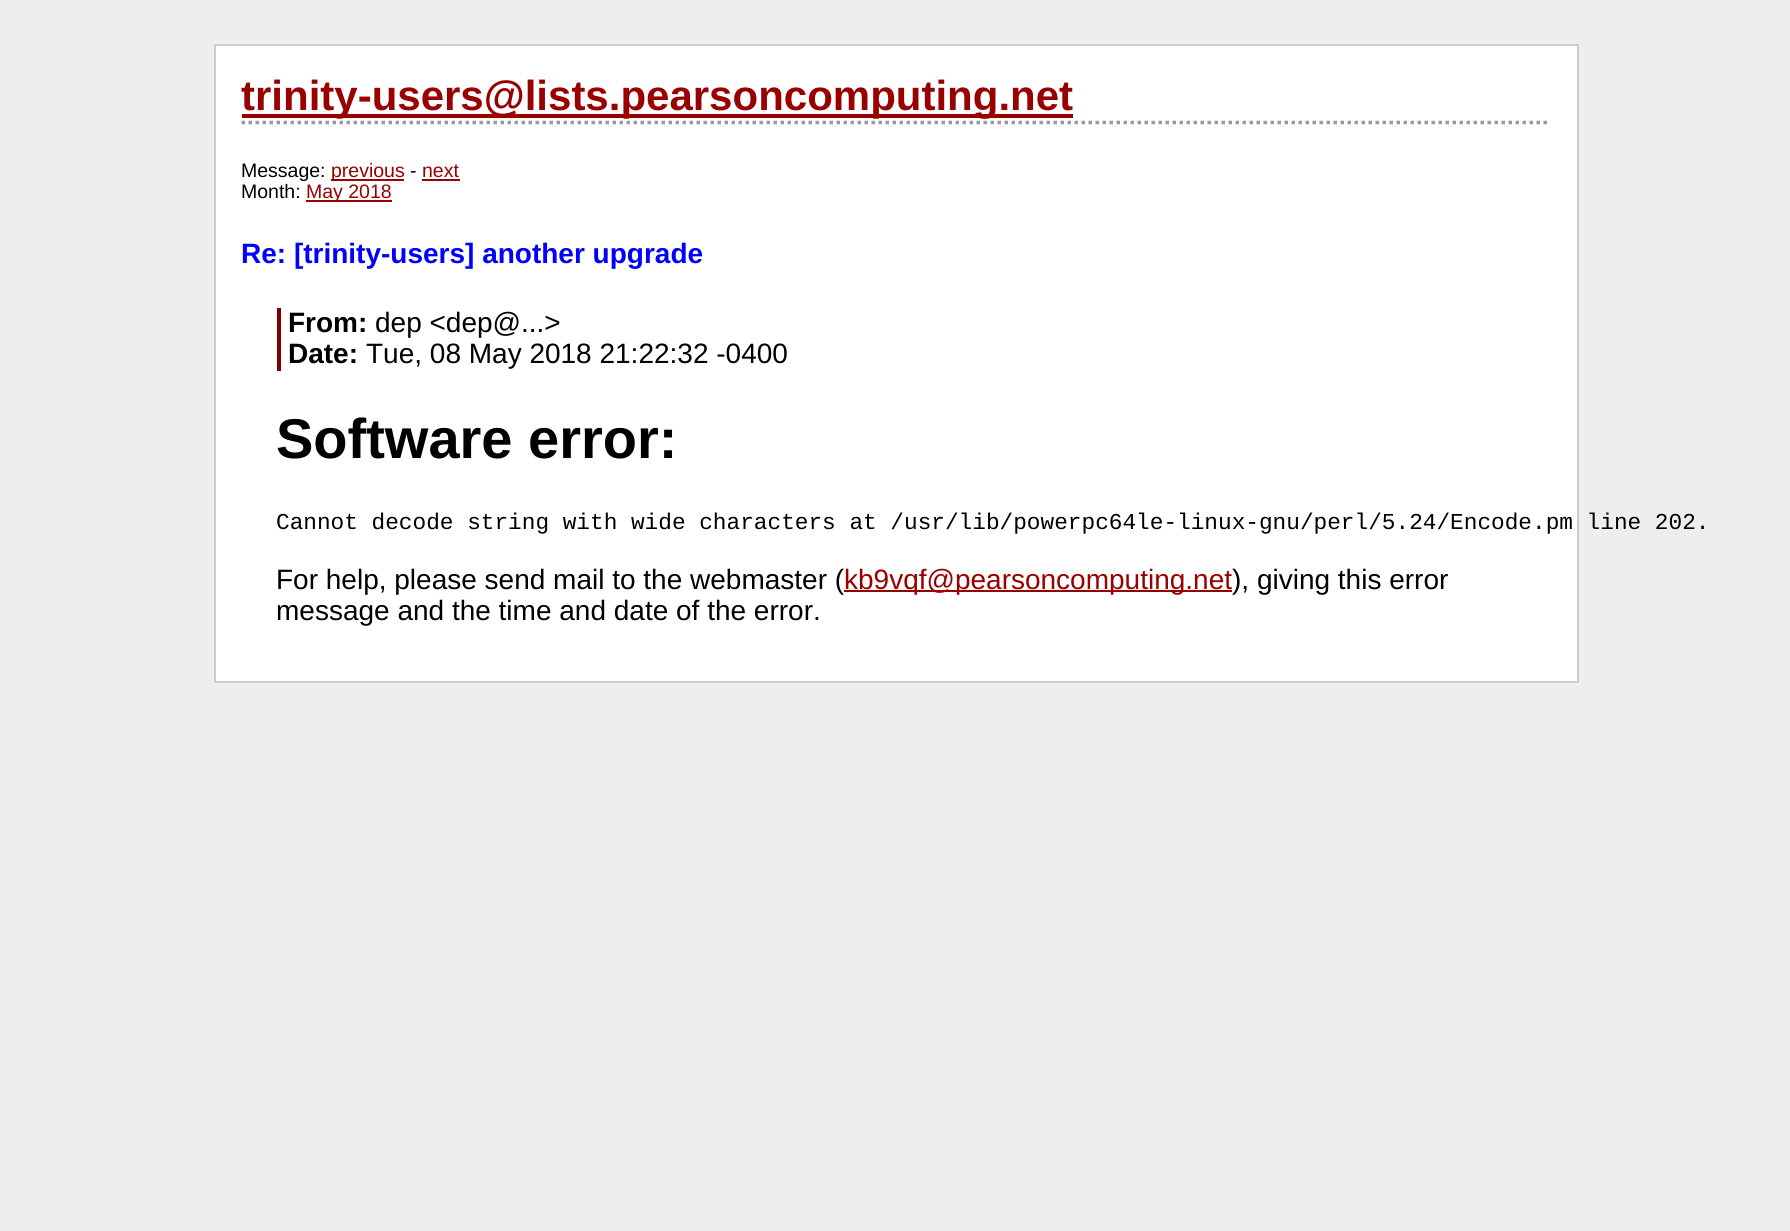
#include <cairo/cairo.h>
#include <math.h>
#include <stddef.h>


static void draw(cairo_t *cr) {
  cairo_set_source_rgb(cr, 238 / 255.0, 238 / 255.0, 238 / 255.0);
  cairo_paint(cr);
  cairo_set_source_rgb(cr, 1, 1, 1);
  cairo_rectangle(cr, 215, 45, 1363, 637);
  cairo_fill_preserve(cr);
  cairo_set_source_rgb(cr, 204 / 255.0, 204 / 255.0, 204 / 255.0);
  cairo_stroke(cr);
  cairo_new_path(cr);
  cairo_move_to(cr, 241.5, 122.5);
  cairo_line_to(cr, 1550.5, 122.5);
  cairo_set_source_rgb(cr, 153 / 255.0, 153 / 255.0, 153 / 255.0);
  cairo_set_line_width(cr, 3.5);
  cairo_set_dash(cr, (double[]){3.5, 3.5}, 2, 0);
  cairo_stroke(cr);
  cairo_set_source_rgb(cr, 153 / 255.0, 0, 0);
  cairo_rectangle(cr, 242, 114, 831, 4);
  cairo_fill(cr);
  cairo_rectangle(cr, 331, 179, 73, 2);
  cairo_fill(cr);
  cairo_rectangle(cr, 422, 179, 38, 2);
  cairo_fill(cr);
  cairo_rectangle(cr, 306, 200, 86, 2);
  cairo_fill(cr);
  cairo_set_source_rgb(cr, 128 / 255.0, 0, 0);
  cairo_rectangle(cr, 277, 308, 4, 63);
  cairo_fill(cr);
  cairo_set_source_rgb(cr, 153 / 255.0, 0, 0);
  cairo_rectangle(cr, 844, 590, 388, 2);
  cairo_fill(cr);
  cairo_select_font_face(cr, "Liberation Sans", CAIRO_FONT_SLANT_NORMAL, CAIRO_FONT_WEIGHT_BOLD);
  cairo_set_font_size(cr, 42);
  cairo_move_to(cr, 241, 110);
  cairo_show_text(cr, "trinity-users@lists.pearsoncomputing.net");
  cairo_select_font_face(cr, "Liberation Sans", CAIRO_FONT_SLANT_NORMAL, CAIRO_FONT_WEIGHT_NORMAL);
  cairo_set_font_size(cr, 19.5);
  cairo_set_source_rgb(cr, 0, 0, 0);
  cairo_move_to(cr, 241, 177);
  cairo_show_text(cr, "Message:");
  cairo_set_source_rgb(cr, 153 / 255.0, 0, 0);
  cairo_move_to(cr, 331, 177);
  cairo_show_text(cr, "previous");
  cairo_set_source_rgb(cr, 0, 0, 0);
  cairo_move_to(cr, 410, 177);
  cairo_show_text(cr, "-");
  cairo_set_source_rgb(cr, 153 / 255.0, 0, 0);
  cairo_move_to(cr, 422, 177);
  cairo_show_text(cr, "next");
  cairo_set_source_rgb(cr, 0, 0, 0);
  cairo_move_to(cr, 241, 198);
  cairo_show_text(cr, "Month:");
  cairo_set_source_rgb(cr, 153 / 255.0, 0, 0);
  cairo_move_to(cr, 306, 198);
  cairo_show_text(cr, "May 2018");
  cairo_select_font_face(cr, "Liberation Sans", CAIRO_FONT_SLANT_NORMAL, CAIRO_FONT_WEIGHT_BOLD);
  cairo_set_font_size(cr, 28);
  cairo_set_source_rgb(cr, 0, 0, 1);
  cairo_move_to(cr, 241, 263);
  cairo_show_text(cr, "Re: [trinity-users] another upgrade");
  cairo_set_source_rgb(cr, 0, 0, 0);
  cairo_move_to(cr, 288, 332);
  cairo_show_text(cr, "From:");
  cairo_select_font_face(cr, "Liberation Sans", CAIRO_FONT_SLANT_NORMAL, CAIRO_FONT_WEIGHT_NORMAL);
  cairo_move_to(cr, 375, 332);
  cairo_show_text(cr, "dep <dep@...>");
  cairo_select_font_face(cr, "Liberation Sans", CAIRO_FONT_SLANT_NORMAL, CAIRO_FONT_WEIGHT_BOLD);
  cairo_move_to(cr, 288, 363);
  cairo_show_text(cr, "Date:");
  cairo_select_font_face(cr, "Liberation Sans", CAIRO_FONT_SLANT_NORMAL, CAIRO_FONT_WEIGHT_NORMAL);
  cairo_move_to(cr, 366, 363);
  cairo_show_text(cr, "Tue, 08 May 2018 21:22:32 -0400");
  cairo_select_font_face(cr, "Liberation Sans", CAIRO_FONT_SLANT_NORMAL, CAIRO_FONT_WEIGHT_BOLD);
  cairo_set_font_size(cr, 56);
  cairo_move_to(cr, 276, 458);
  cairo_show_text(cr, "Software error:");
  cairo_select_font_face(cr, "Liberation Mono", CAIRO_FONT_SLANT_NORMAL, CAIRO_FONT_WEIGHT_NORMAL);
  cairo_set_font_size(cr, 22.75);
  cairo_move_to(cr, 276, 529);
  cairo_show_text(cr, "Cannot decode string with wide characters at /usr/lib/powerpc64le-linux-gnu/perl/5.24/Encode.pm line 202.");
  cairo_select_font_face(cr, "Liberation Sans", CAIRO_FONT_SLANT_NORMAL, CAIRO_FONT_WEIGHT_NORMAL);
  cairo_set_font_size(cr, 28);
  cairo_move_to(cr, 276, 589);
  cairo_show_text(cr, "For help, please send mail to the webmaster (");
  cairo_set_source_rgb(cr, 153 / 255.0, 0, 0);
  cairo_move_to(cr, 844, 589);
  cairo_show_text(cr, "kb9vqf@pearsoncomputing.net");
  cairo_set_source_rgb(cr, 0, 0, 0);
  cairo_move_to(cr, 1232, 589);
  cairo_show_text(cr, "), giving this error");
  cairo_move_to(cr, 276, 620);
  cairo_show_text(cr, "message and the time and date of the error.");
}

int main(void) {
  cairo_surface_t *surface = cairo_image_surface_create(CAIRO_FORMAT_RGB24, 1790, 1231);
  cairo_t *cr = cairo_create(surface);
  cairo_font_options_t *options = cairo_font_options_create();
  cairo_font_options_set_hint_metrics(options, CAIRO_HINT_METRICS_OFF);
  cairo_font_options_set_hint_style(options, CAIRO_HINT_STYLE_NONE);
  cairo_set_font_options(cr, options);
  cairo_set_miter_limit(cr, 4);
  draw(cr);
  cairo_surface_write_to_png(surface, "out.png");
  cairo_font_options_destroy(options);
  cairo_destroy(cr);
  cairo_surface_destroy(surface);
  return 0;
}
